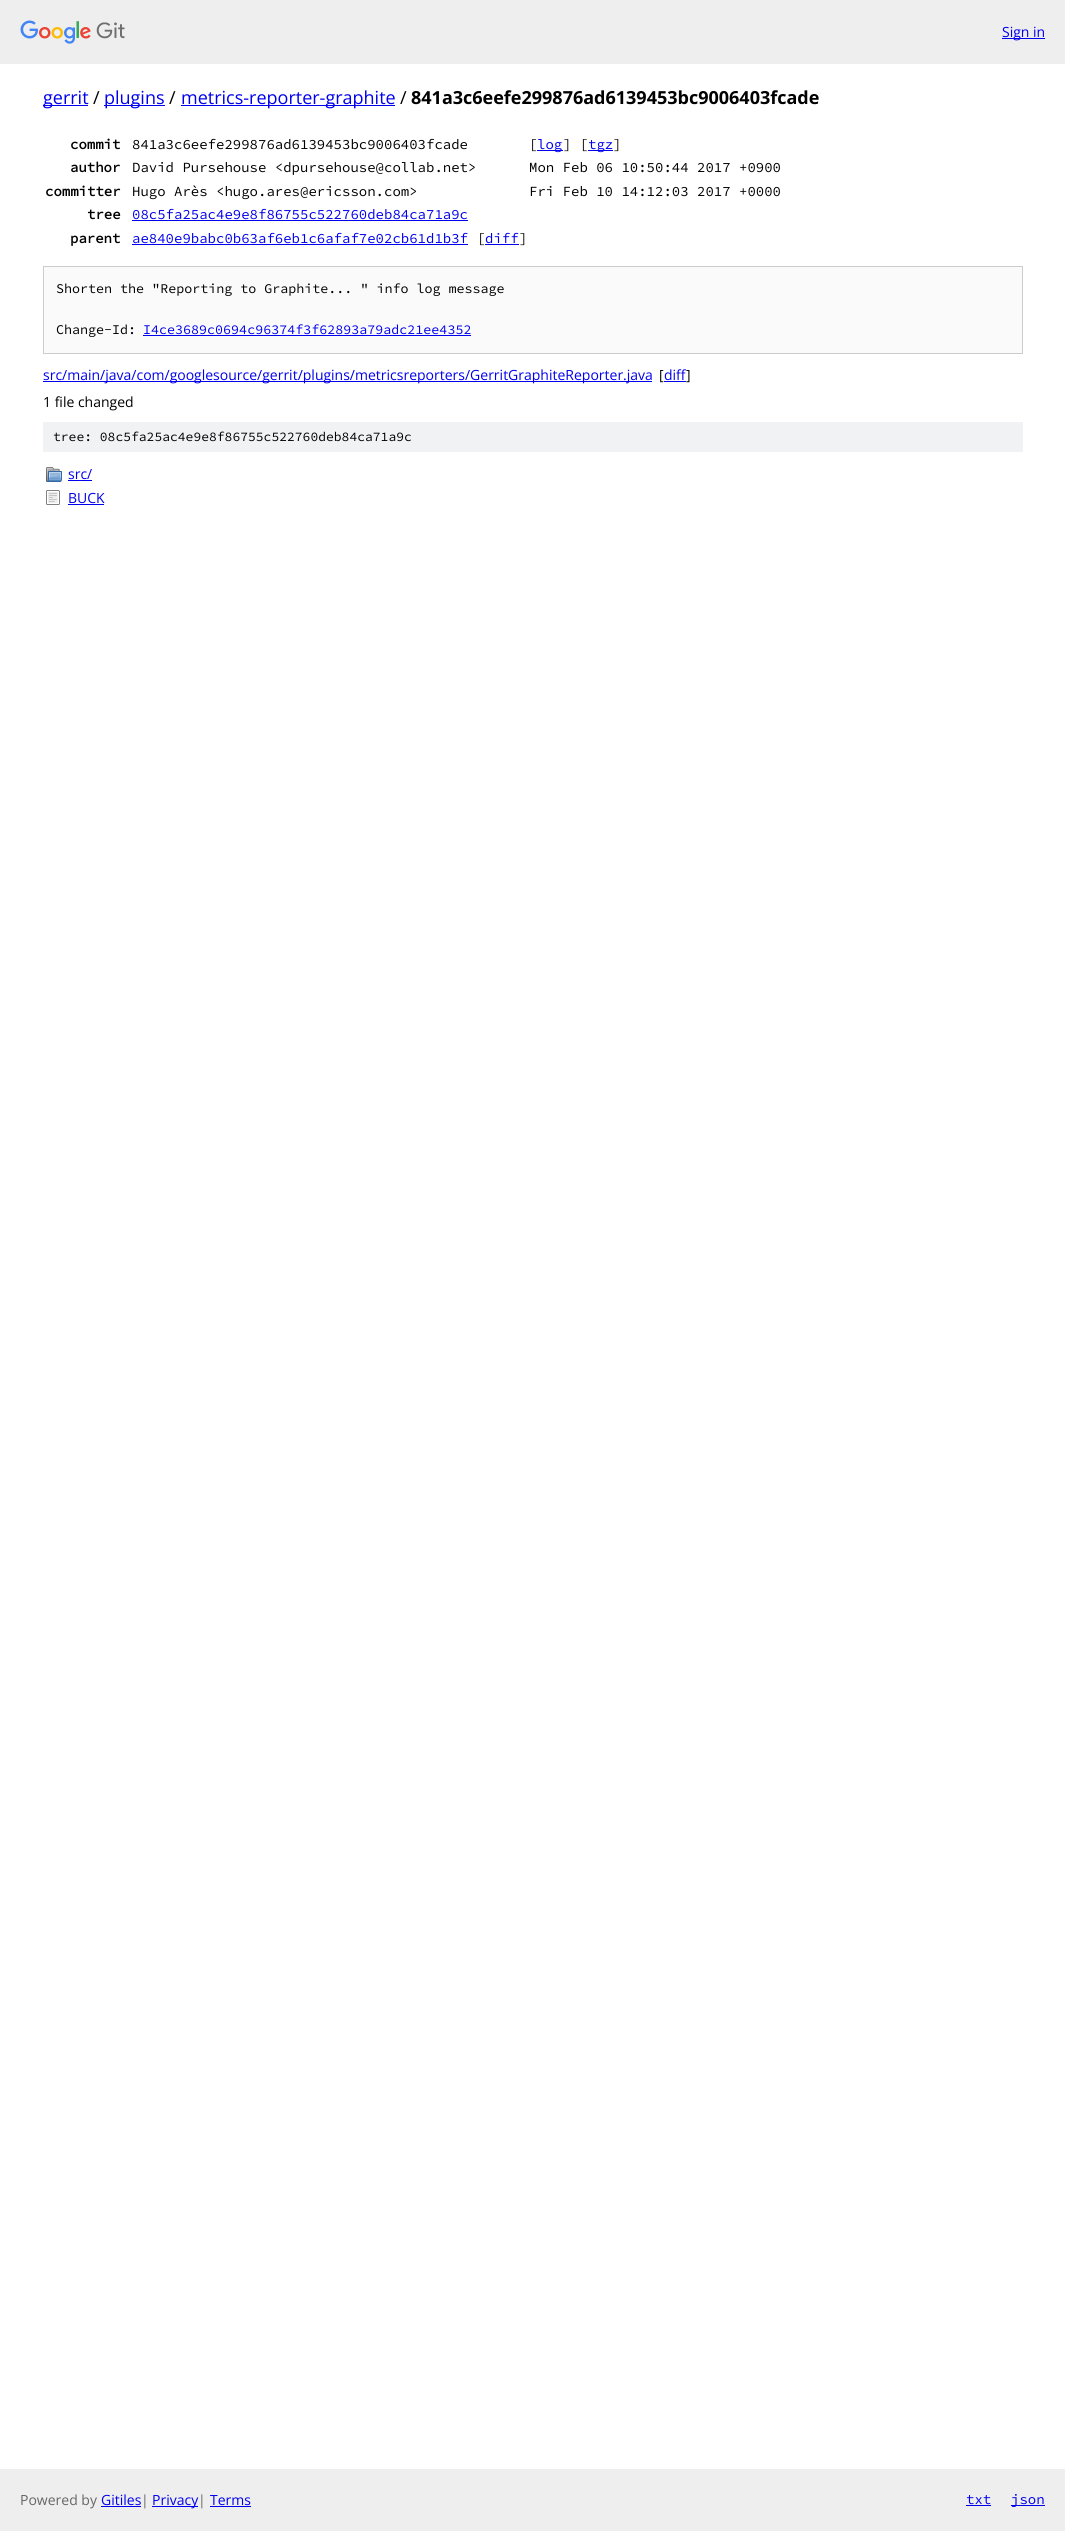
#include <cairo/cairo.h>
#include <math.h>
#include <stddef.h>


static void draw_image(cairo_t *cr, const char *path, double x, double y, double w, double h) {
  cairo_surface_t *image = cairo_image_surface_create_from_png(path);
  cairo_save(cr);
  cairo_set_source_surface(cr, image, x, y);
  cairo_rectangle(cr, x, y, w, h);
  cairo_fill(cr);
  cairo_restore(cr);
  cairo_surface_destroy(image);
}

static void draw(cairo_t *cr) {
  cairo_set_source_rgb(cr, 1, 1, 1);
  cairo_paint(cr);
  cairo_set_source_rgb(cr, 238 / 255.0, 238 / 255.0, 238 / 255.0);
  cairo_rectangle(cr, 0, 0, 1065, 64);
  cairo_fill(cr);
  draw_image(cr, "images/1.png", 20, 20, 105, 24);
  cairo_set_source_rgb(cr, 0, 0, 238 / 255.0);
  cairo_rectangle(cr, 1002, 38, 43, 1);
  cairo_fill(cr);
  cairo_rectangle(cr, 43, 105, 45, 1);
  cairo_fill(cr);
  cairo_rectangle(cr, 104, 105, 61, 1);
  cairo_fill(cr);
  cairo_rectangle(cr, 181, 105, 214, 1);
  cairo_fill(cr);
  cairo_rectangle(cr, 537, 150, 26, 1);
  cairo_fill(cr);
  cairo_rectangle(cr, 588, 150, 25, 1);
  cairo_fill(cr);
  cairo_rectangle(cr, 132, 220, 336, 1);
  cairo_fill(cr);
  cairo_rectangle(cr, 132, 244, 336, 1);
  cairo_fill(cr);
  cairo_rectangle(cr, 485, 244, 34, 1);
  cairo_fill(cr);
  cairo_set_source_rgb(cr, 250 / 255.0, 250 / 255.0, 250 / 255.0);
  cairo_rectangle(cr, 43.5, 266.5, 979, 87);
  cairo_fill_preserve(cr);
  cairo_set_source_rgb(cr, 204 / 255.0, 204 / 255.0, 204 / 255.0);
  cairo_set_line_width(cr, 1);
  cairo_stroke(cr);
  cairo_set_source_rgb(cr, 0, 0, 238 / 255.0);
  cairo_rectangle(cr, 143, 335, 328, 1);
  cairo_fill(cr);
  cairo_rectangle(cr, 43, 381, 609, 1);
  cairo_fill(cr);
  cairo_rectangle(cr, 664, 381, 22, 1);
  cairo_fill(cr);
  cairo_set_source_rgb(cr, 241 / 255.0, 242 / 255.0, 243 / 255.0);
  cairo_rectangle(cr, 43, 422, 980, 30);
  cairo_fill(cr);
  draw_image(cr, "images/2.png", 46, 467, 16, 15);
  cairo_set_source_rgb(cr, 0, 0, 238 / 255.0);
  cairo_rectangle(cr, 68, 480, 24, 1);
  cairo_fill(cr);
  draw_image(cr, "images/3.png", 46, 490, 14, 15);
  cairo_rectangle(cr, 68, 504, 36, 1);
  cairo_fill(cr);
  cairo_set_source_rgb(cr, 238 / 255.0, 238 / 255.0, 238 / 255.0);
  cairo_rectangle(cr, 0, 2469, 1065, 62);
  cairo_fill(cr);
  cairo_set_source_rgb(cr, 0, 0, 238 / 255.0);
  cairo_rectangle(cr, 101, 2506, 40, 1);
  cairo_fill(cr);
  cairo_rectangle(cr, 152, 2506, 46, 1);
  cairo_fill(cr);
  cairo_rectangle(cr, 210, 2506, 41, 1);
  cairo_fill(cr);
  cairo_rectangle(cr, 966, 2505, 25, 1);
  cairo_fill(cr);
  cairo_rectangle(cr, 1011, 2505, 34, 1);
  cairo_fill(cr);
  cairo_select_font_face(cr, "Open Sans", CAIRO_FONT_SLANT_NORMAL, CAIRO_FONT_WEIGHT_NORMAL);
  cairo_set_font_size(cr, 14);
  cairo_move_to(cr, 1002, 37);
  cairo_show_text(cr, "Sign in");
  cairo_set_font_size(cr, 18);
  cairo_move_to(cr, 43, 104);
  cairo_show_text(cr, "gerrit");
  cairo_set_source_rgb(cr, 0, 0, 0);
  cairo_move_to(cr, 93, 104);
  cairo_show_text(cr, "/");
  cairo_set_source_rgb(cr, 0, 0, 238 / 255.0);
  cairo_move_to(cr, 104, 104);
  cairo_show_text(cr, "plugins");
  cairo_set_source_rgb(cr, 0, 0, 0);
  cairo_move_to(cr, 169, 104);
  cairo_show_text(cr, "/");
  cairo_set_source_rgb(cr, 0, 0, 238 / 255.0);
  cairo_move_to(cr, 181, 104);
  cairo_show_text(cr, "metrics-reporter-graphite");
  cairo_set_source_rgb(cr, 0, 0, 0);
  cairo_move_to(cr, 400, 104);
  cairo_show_text(cr, "/");
  cairo_select_font_face(cr, "Open Sans", CAIRO_FONT_SLANT_NORMAL, CAIRO_FONT_WEIGHT_BOLD);
  cairo_move_to(cr, 411, 104);
  cairo_show_text(cr, "841a3c6eefe299876ad6139453bc9006403fcade");
  cairo_select_font_face(cr, "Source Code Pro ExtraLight", CAIRO_FONT_SLANT_NORMAL, CAIRO_FONT_WEIGHT_BOLD);
  cairo_set_font_size(cr, 14);
  cairo_move_to(cr, 70, 149);
  cairo_show_text(cr, "commit");
  cairo_select_font_face(cr, "Source Code Pro ExtraLight ExtraLight", CAIRO_FONT_SLANT_NORMAL, CAIRO_FONT_WEIGHT_NORMAL);
  cairo_move_to(cr, 132, 149);
  cairo_show_text(cr, "841a3c6eefe299876ad6139453bc9006403fcade");
  cairo_move_to(cr, 529, 149);
  cairo_show_text(cr, "[");
  cairo_set_source_rgb(cr, 0, 0, 238 / 255.0);
  cairo_move_to(cr, 537, 149);
  cairo_show_text(cr, "log");
  cairo_set_source_rgb(cr, 0, 0, 0);
  cairo_move_to(cr, 563, 149);
  cairo_show_text(cr, "] [");
  cairo_set_source_rgb(cr, 0, 0, 238 / 255.0);
  cairo_move_to(cr, 588, 149);
  cairo_show_text(cr, "tgz");
  cairo_set_source_rgb(cr, 0, 0, 0);
  cairo_move_to(cr, 613, 149);
  cairo_show_text(cr, "]");
  cairo_select_font_face(cr, "Source Code Pro ExtraLight", CAIRO_FONT_SLANT_NORMAL, CAIRO_FONT_WEIGHT_BOLD);
  cairo_move_to(cr, 70, 172);
  cairo_show_text(cr, "author");
  cairo_select_font_face(cr, "Source Code Pro ExtraLight ExtraLight", CAIRO_FONT_SLANT_NORMAL, CAIRO_FONT_WEIGHT_NORMAL);
  cairo_move_to(cr, 132, 172);
  cairo_show_text(cr, "David Pursehouse <dpursehouse@collab.net>");
  cairo_move_to(cr, 529, 172);
  cairo_show_text(cr, "Mon Feb 06 10:50:44 2017 +0900");
  cairo_select_font_face(cr, "Source Code Pro ExtraLight", CAIRO_FONT_SLANT_NORMAL, CAIRO_FONT_WEIGHT_BOLD);
  cairo_move_to(cr, 45, 196);
  cairo_show_text(cr, "committer");
  cairo_select_font_face(cr, "Source Code Pro ExtraLight ExtraLight", CAIRO_FONT_SLANT_NORMAL, CAIRO_FONT_WEIGHT_NORMAL);
  cairo_move_to(cr, 132, 196);
  cairo_show_text(cr, "Hugo Arès <hugo.ares@ericsson.com>");
  cairo_move_to(cr, 529, 196);
  cairo_show_text(cr, "Fri Feb 10 14:12:03 2017 +0000");
  cairo_select_font_face(cr, "Source Code Pro ExtraLight", CAIRO_FONT_SLANT_NORMAL, CAIRO_FONT_WEIGHT_BOLD);
  cairo_move_to(cr, 87, 219);
  cairo_show_text(cr, "tree");
  cairo_select_font_face(cr, "Source Code Pro ExtraLight ExtraLight", CAIRO_FONT_SLANT_NORMAL, CAIRO_FONT_WEIGHT_NORMAL);
  cairo_set_source_rgb(cr, 0, 0, 238 / 255.0);
  cairo_move_to(cr, 132, 219);
  cairo_show_text(cr, "08c5fa25ac4e9e8f86755c522760deb84ca71a9c");
  cairo_select_font_face(cr, "Source Code Pro ExtraLight", CAIRO_FONT_SLANT_NORMAL, CAIRO_FONT_WEIGHT_BOLD);
  cairo_set_source_rgb(cr, 0, 0, 0);
  cairo_move_to(cr, 70, 243);
  cairo_show_text(cr, "parent");
  cairo_select_font_face(cr, "Source Code Pro ExtraLight ExtraLight", CAIRO_FONT_SLANT_NORMAL, CAIRO_FONT_WEIGHT_NORMAL);
  cairo_set_source_rgb(cr, 0, 0, 238 / 255.0);
  cairo_move_to(cr, 132, 243);
  cairo_show_text(cr, "ae840e9babc0b63af6eb1c6afaf7e02cb61d1b3f");
  cairo_set_source_rgb(cr, 0, 0, 0);
  cairo_move_to(cr, 477, 243);
  cairo_show_text(cr, "[");
  cairo_set_source_rgb(cr, 0, 0, 238 / 255.0);
  cairo_move_to(cr, 485, 243);
  cairo_show_text(cr, "diff");
  cairo_set_source_rgb(cr, 0, 0, 0);
  cairo_move_to(cr, 519, 243);
  cairo_show_text(cr, "]");
  cairo_set_font_size(cr, 13.35);
  cairo_move_to(cr, 56, 293);
  cairo_show_text(cr, "Shorten the \"Reporting to Graphite... \" info log message");
  cairo_move_to(cr, 56, 334);
  cairo_show_text(cr, "Change-Id:");
  cairo_set_source_rgb(cr, 0, 0, 238 / 255.0);
  cairo_move_to(cr, 143, 334);
  cairo_show_text(cr, "I4ce3689c0694c96374f3f62893a79adc21ee4352");
  cairo_select_font_face(cr, "Open Sans", CAIRO_FONT_SLANT_NORMAL, CAIRO_FONT_WEIGHT_NORMAL);
  cairo_set_font_size(cr, 14);
  cairo_move_to(cr, 43, 380);
  cairo_show_text(cr, "src/main/java/com/googlesource/gerrit/plugins/metricsreporters/GerritGraphiteReporter.java");
  cairo_set_source_rgb(cr, 0, 0, 0);
  cairo_move_to(cr, 659, 380);
  cairo_show_text(cr, "[");
  cairo_set_source_rgb(cr, 0, 0, 238 / 255.0);
  cairo_move_to(cr, 664, 380);
  cairo_show_text(cr, "diff");
  cairo_set_source_rgb(cr, 0, 0, 0);
  cairo_move_to(cr, 686, 380);
  cairo_show_text(cr, "]");
  cairo_move_to(cr, 43, 407);
  cairo_show_text(cr, "1 file changed");
  cairo_select_font_face(cr, "Source Code Pro ExtraLight ExtraLight", CAIRO_FONT_SLANT_NORMAL, CAIRO_FONT_WEIGHT_NORMAL);
  cairo_set_font_size(cr, 13);
  cairo_move_to(cr, 53, 441);
  cairo_show_text(cr, "tree: 08c5fa25ac4e9e8f86755c522760deb84ca71a9c");
  cairo_select_font_face(cr, "Open Sans", CAIRO_FONT_SLANT_NORMAL, CAIRO_FONT_WEIGHT_NORMAL);
  cairo_set_font_size(cr, 14);
  cairo_set_source_rgb(cr, 0, 0, 238 / 255.0);
  cairo_move_to(cr, 68, 479);
  cairo_show_text(cr, "src/");
  cairo_move_to(cr, 68, 503);
  cairo_show_text(cr, "BUCK");
  cairo_set_source_rgb(cr, 102 / 255.0, 102 / 255.0, 102 / 255.0);
  cairo_move_to(cr, 20, 2505);
  cairo_show_text(cr, "Powered by");
  cairo_set_source_rgb(cr, 0, 0, 238 / 255.0);
  cairo_move_to(cr, 101, 2505);
  cairo_show_text(cr, "Gitiles");
  cairo_set_source_rgb(cr, 102 / 255.0, 102 / 255.0, 102 / 255.0);
  cairo_move_to(cr, 141, 2505);
  cairo_show_text(cr, "|");
  cairo_set_source_rgb(cr, 0, 0, 238 / 255.0);
  cairo_move_to(cr, 152, 2505);
  cairo_show_text(cr, "Privacy");
  cairo_set_source_rgb(cr, 102 / 255.0, 102 / 255.0, 102 / 255.0);
  cairo_move_to(cr, 198, 2505);
  cairo_show_text(cr, "|");
  cairo_set_source_rgb(cr, 0, 0, 238 / 255.0);
  cairo_move_to(cr, 210, 2505);
  cairo_show_text(cr, "Terms");
  cairo_select_font_face(cr, "Source Code Pro ExtraLight ExtraLight", CAIRO_FONT_SLANT_NORMAL, CAIRO_FONT_WEIGHT_NORMAL);
  cairo_move_to(cr, 966, 2504);
  cairo_show_text(cr, "txt");
  cairo_move_to(cr, 1011, 2504);
  cairo_show_text(cr, "json");
}

int main(void) {
  cairo_surface_t *surface = cairo_image_surface_create(CAIRO_FORMAT_RGB24, 1065, 2531);
  cairo_t *cr = cairo_create(surface);
  cairo_font_options_t *options = cairo_font_options_create();
  cairo_font_options_set_hint_metrics(options, CAIRO_HINT_METRICS_OFF);
  cairo_font_options_set_hint_style(options, CAIRO_HINT_STYLE_NONE);
  cairo_set_font_options(cr, options);
  cairo_set_miter_limit(cr, 4);
  draw(cr);
  cairo_surface_write_to_png(surface, "out.png");
  cairo_font_options_destroy(options);
  cairo_destroy(cr);
  cairo_surface_destroy(surface);
  return 0;
}
